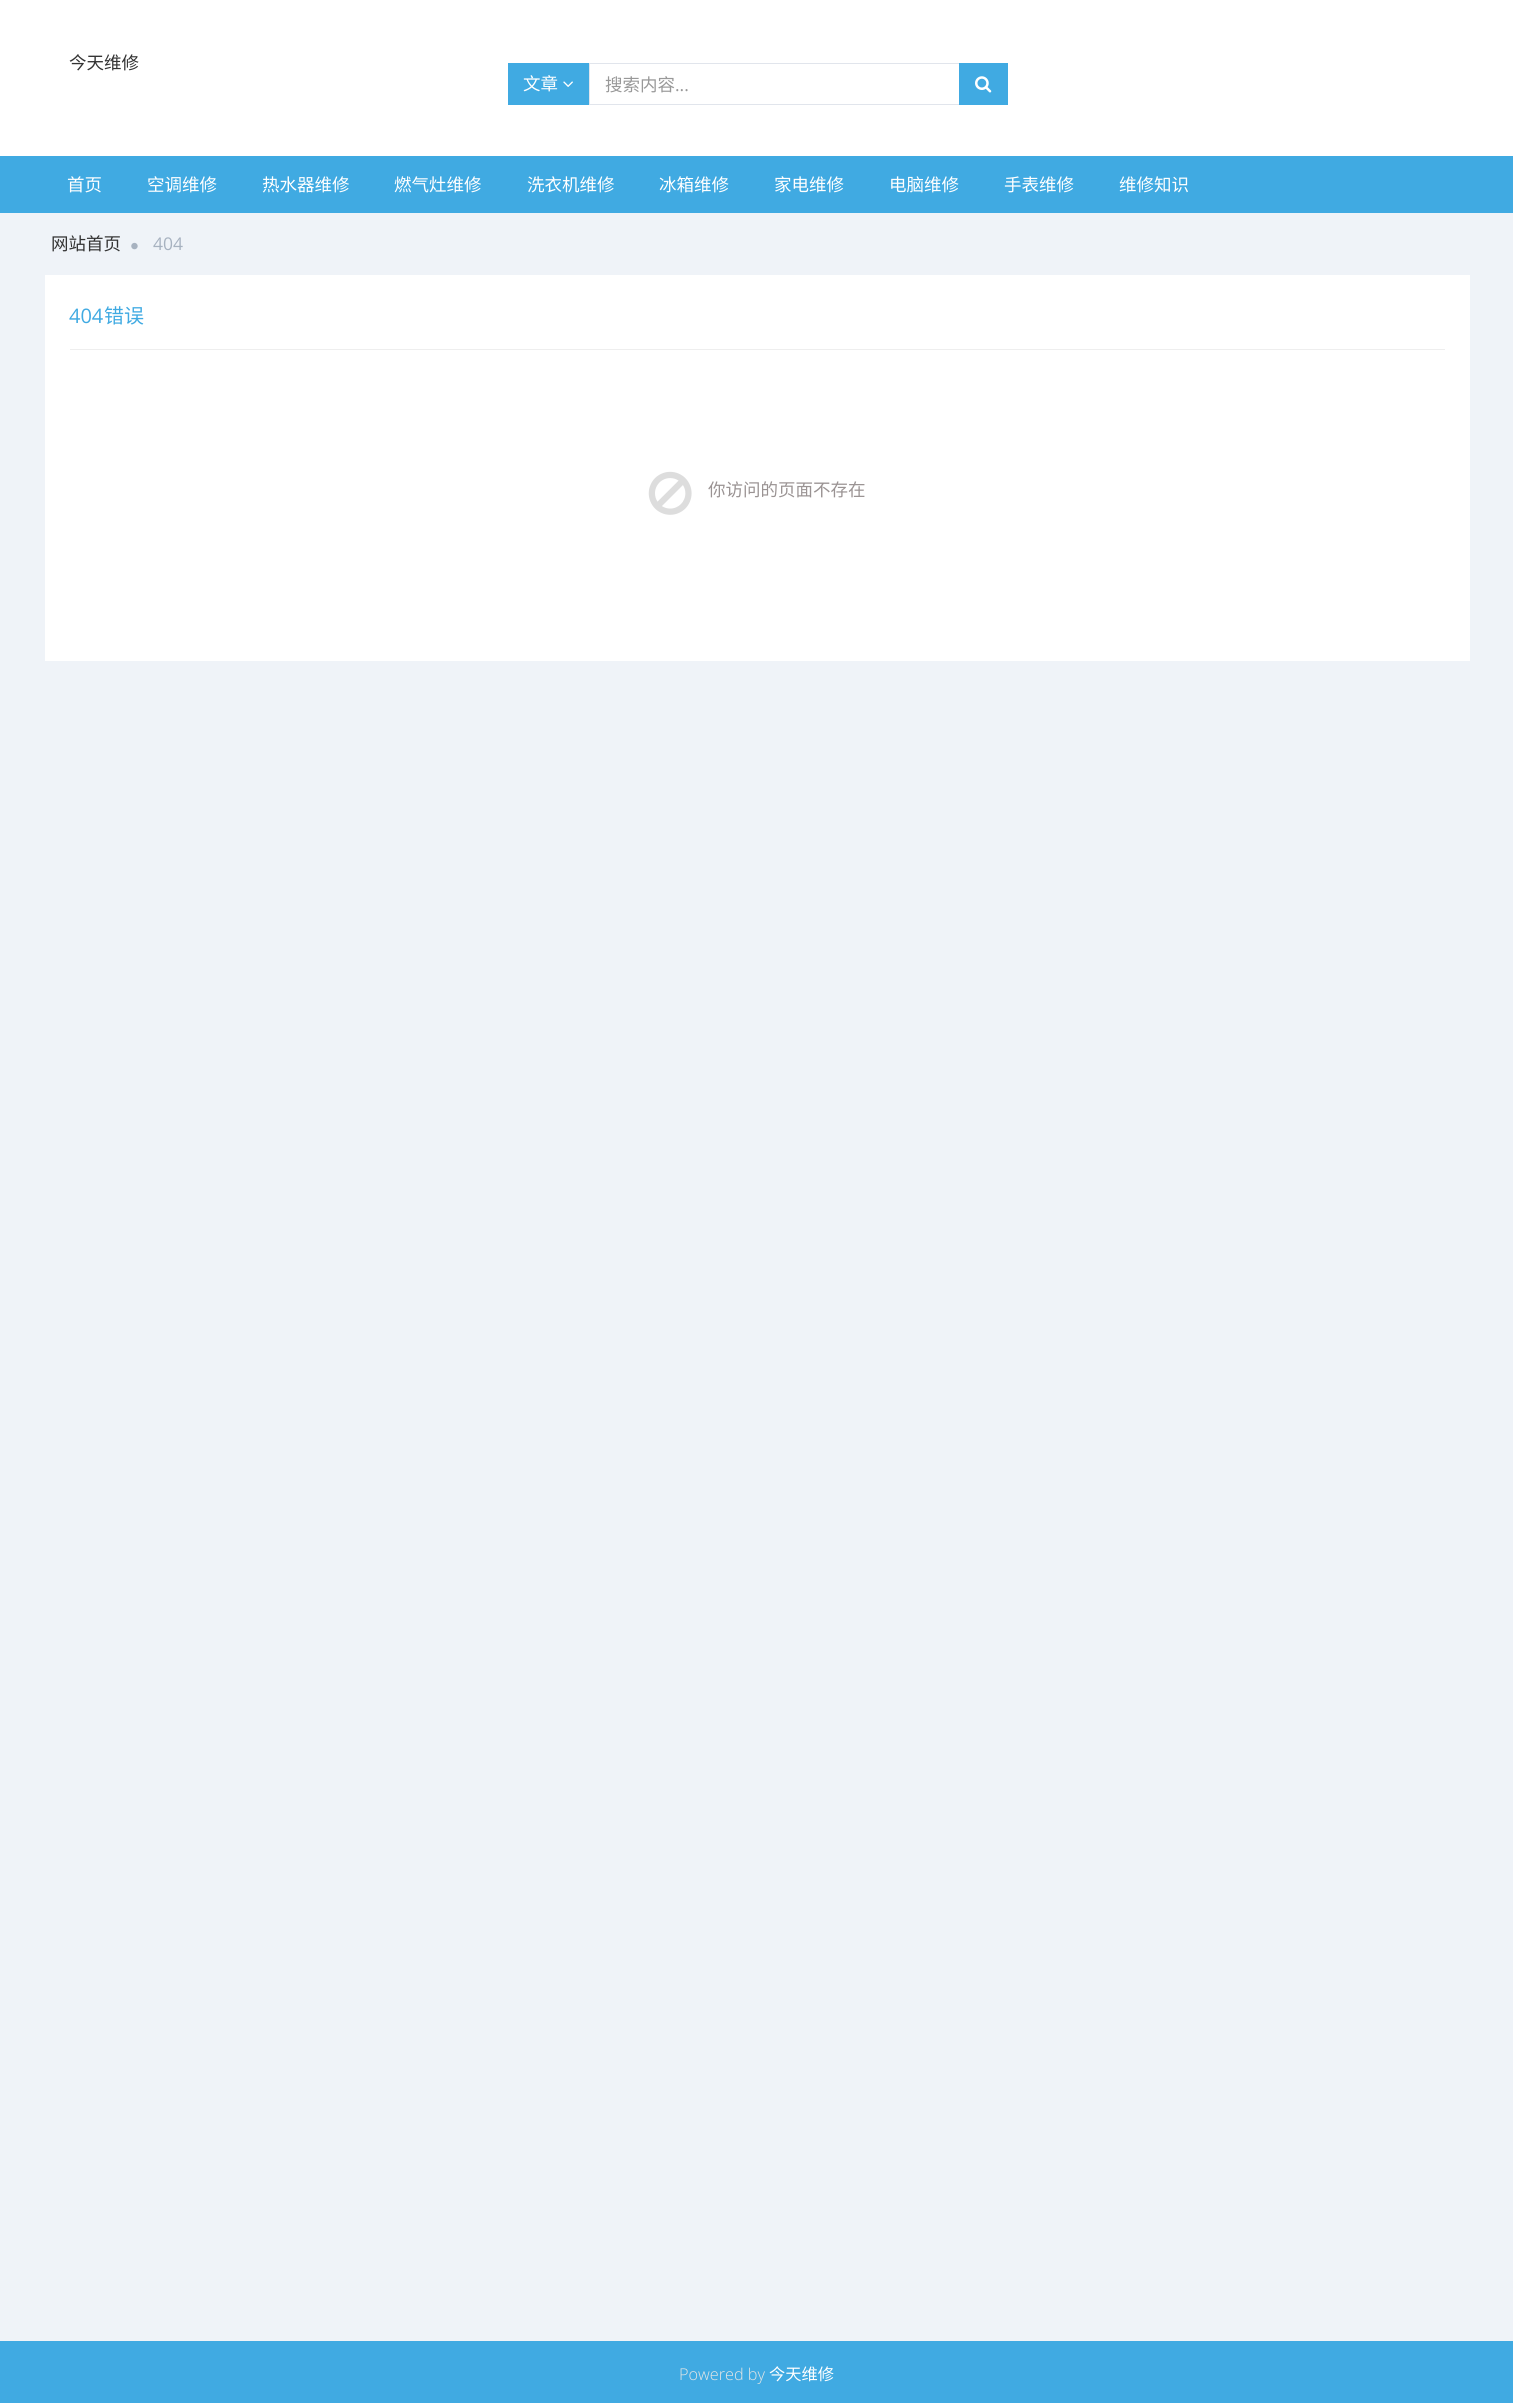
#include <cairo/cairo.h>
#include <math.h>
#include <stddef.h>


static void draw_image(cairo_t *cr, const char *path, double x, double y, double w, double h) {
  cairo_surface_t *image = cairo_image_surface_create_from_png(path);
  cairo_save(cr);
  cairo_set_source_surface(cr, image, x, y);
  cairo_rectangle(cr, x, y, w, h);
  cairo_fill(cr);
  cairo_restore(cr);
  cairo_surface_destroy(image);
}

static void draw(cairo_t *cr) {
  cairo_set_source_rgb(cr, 1, 1, 1);
  cairo_paint(cr);
  cairo_set_source_rgb(cr, 64 / 255.0, 170 / 255.0, 226 / 255.0);
  cairo_rectangle(cr, 508, 63, 81, 42);
  cairo_fill(cr);
  draw_image(cr, "images/1.png", 563, 81, 10, 6);
  cairo_rectangle(cr, 589.5, 63.5, 370, 41);
  cairo_set_source_rgb(cr, 225 / 255.0, 229 / 255.0, 236 / 255.0);
  cairo_set_line_width(cr, 1);
  cairo_stroke(cr);
  cairo_set_source_rgb(cr, 64 / 255.0, 170 / 255.0, 226 / 255.0);
  cairo_rectangle(cr, 959, 63, 49, 42);
  cairo_fill(cr);
  draw_image(cr, "images/2.png", 975, 76, 17, 17);
  cairo_rectangle(cr, 0, 156, 1513, 57);
  cairo_fill(cr);
  cairo_set_source_rgb(cr, 239 / 255.0, 243 / 255.0, 248 / 255.0);
  cairo_rectangle(cr, 0, 213, 1513, 2128);
  cairo_fill(cr);
  draw_image(cr, "images/3.png", 131, 242, 7, 8);
  cairo_set_source_rgb(cr, 1, 1, 1);
  cairo_rectangle(cr, 45, 275, 1425, 386);
  cairo_fill(cr);
  cairo_set_source_rgb(cr, 238 / 255.0, 238 / 255.0, 238 / 255.0);
  cairo_rectangle(cr, 70, 349, 1375, 1);
  cairo_fill(cr);
  draw_image(cr, "images/4.png", 648, 471, 44, 44);
  cairo_set_source_rgb(cr, 64 / 255.0, 170 / 255.0, 226 / 255.0);
  cairo_rectangle(cr, 0, 2341, 1513, 62);
  cairo_fill(cr);
  cairo_select_font_face(cr, "Noto Sans CJK SC", CAIRO_FONT_SLANT_NORMAL, CAIRO_FONT_WEIGHT_NORMAL);
  cairo_set_font_size(cr, 17.5);
  cairo_set_source_rgb(cr, 51 / 255.0, 51 / 255.0, 51 / 255.0);
  cairo_move_to(cr, 69, 69);
  cairo_show_text(cr, "今天维修");
  cairo_set_source_rgb(cr, 1, 1, 1);
  cairo_move_to(cr, 523, 90);
  cairo_show_text(cr, "文章");
  cairo_set_source_rgb(cr, 153 / 255.0, 153 / 255.0, 153 / 255.0);
  cairo_move_to(cr, 605, 91);
  cairo_show_text(cr, "搜索内容");
  cairo_select_font_face(cr, "Open Sans", CAIRO_FONT_SLANT_NORMAL, CAIRO_FONT_WEIGHT_NORMAL);
  cairo_move_to(cr, 675, 91);
  cairo_show_text(cr, "...");
  cairo_select_font_face(cr, "Noto Sans CJK SC", CAIRO_FONT_SLANT_NORMAL, CAIRO_FONT_WEIGHT_NORMAL);
  cairo_set_source_rgb(cr, 1, 1, 1);
  cairo_move_to(cr, 67, 191);
  cairo_show_text(cr, "首页");
  cairo_move_to(cr, 147, 191);
  cairo_show_text(cr, "空调维修");
  cairo_move_to(cr, 262, 191);
  cairo_show_text(cr, "热水器维修");
  cairo_move_to(cr, 394, 191);
  cairo_show_text(cr, "燃气灶维修");
  cairo_move_to(cr, 527, 191);
  cairo_show_text(cr, "洗衣机维修");
  cairo_move_to(cr, 659, 191);
  cairo_show_text(cr, "冰箱维修");
  cairo_move_to(cr, 774, 191);
  cairo_show_text(cr, "家电维修");
  cairo_move_to(cr, 889, 191);
  cairo_show_text(cr, "电脑维修");
  cairo_move_to(cr, 1004, 191);
  cairo_show_text(cr, "手表维修");
  cairo_move_to(cr, 1119, 191);
  cairo_show_text(cr, "维修知识");
  cairo_set_source_rgb(cr, 51 / 255.0, 51 / 255.0, 51 / 255.0);
  cairo_move_to(cr, 51, 250);
  cairo_show_text(cr, "网站首页");
  cairo_select_font_face(cr, "Open Sans", CAIRO_FONT_SLANT_NORMAL, CAIRO_FONT_WEIGHT_NORMAL);
  cairo_set_source_rgb(cr, 167 / 255.0, 178 / 255.0, 192 / 255.0);
  cairo_move_to(cr, 153, 250);
  cairo_show_text(cr, "404");
  cairo_set_font_size(cr, 20);
  cairo_set_source_rgb(cr, 64 / 255.0, 170 / 255.0, 226 / 255.0);
  cairo_move_to(cr, 69, 323);
  cairo_show_text(cr, "404");
  cairo_select_font_face(cr, "Noto Sans CJK SC", CAIRO_FONT_SLANT_NORMAL, CAIRO_FONT_WEIGHT_NORMAL);
  cairo_move_to(cr, 104, 323);
  cairo_show_text(cr, "错误");
  cairo_set_font_size(cr, 17.5);
  cairo_set_source_rgb(cr, 154 / 255.0, 147 / 255.0, 147 / 255.0);
  cairo_move_to(cr, 708, 496);
  cairo_show_text(cr, "你访问的页面不存在");
  cairo_select_font_face(cr, "Open Sans Light", CAIRO_FONT_SLANT_NORMAL, CAIRO_FONT_WEIGHT_NORMAL);
  cairo_set_font_size(cr, 16.25);
  cairo_set_source_rgb(cr, 230 / 255.0, 230 / 255.0, 229 / 255.0);
  cairo_move_to(cr, 679, 2380);
  cairo_show_text(cr, "Powered by");
  cairo_select_font_face(cr, "Noto Sans CJK SC", CAIRO_FONT_SLANT_NORMAL, CAIRO_FONT_WEIGHT_NORMAL);
  cairo_set_source_rgb(cr, 1, 1, 1);
  cairo_move_to(cr, 769, 2380);
  cairo_show_text(cr, "今天维修");
}

int main(void) {
  cairo_surface_t *surface = cairo_image_surface_create(CAIRO_FORMAT_RGB24, 1513, 2403);
  cairo_t *cr = cairo_create(surface);
  cairo_font_options_t *options = cairo_font_options_create();
  cairo_font_options_set_hint_metrics(options, CAIRO_HINT_METRICS_OFF);
  cairo_font_options_set_hint_style(options, CAIRO_HINT_STYLE_NONE);
  cairo_set_font_options(cr, options);
  cairo_set_miter_limit(cr, 4);
  draw(cr);
  cairo_surface_write_to_png(surface, "out.png");
  cairo_font_options_destroy(options);
  cairo_destroy(cr);
  cairo_surface_destroy(surface);
  return 0;
}
